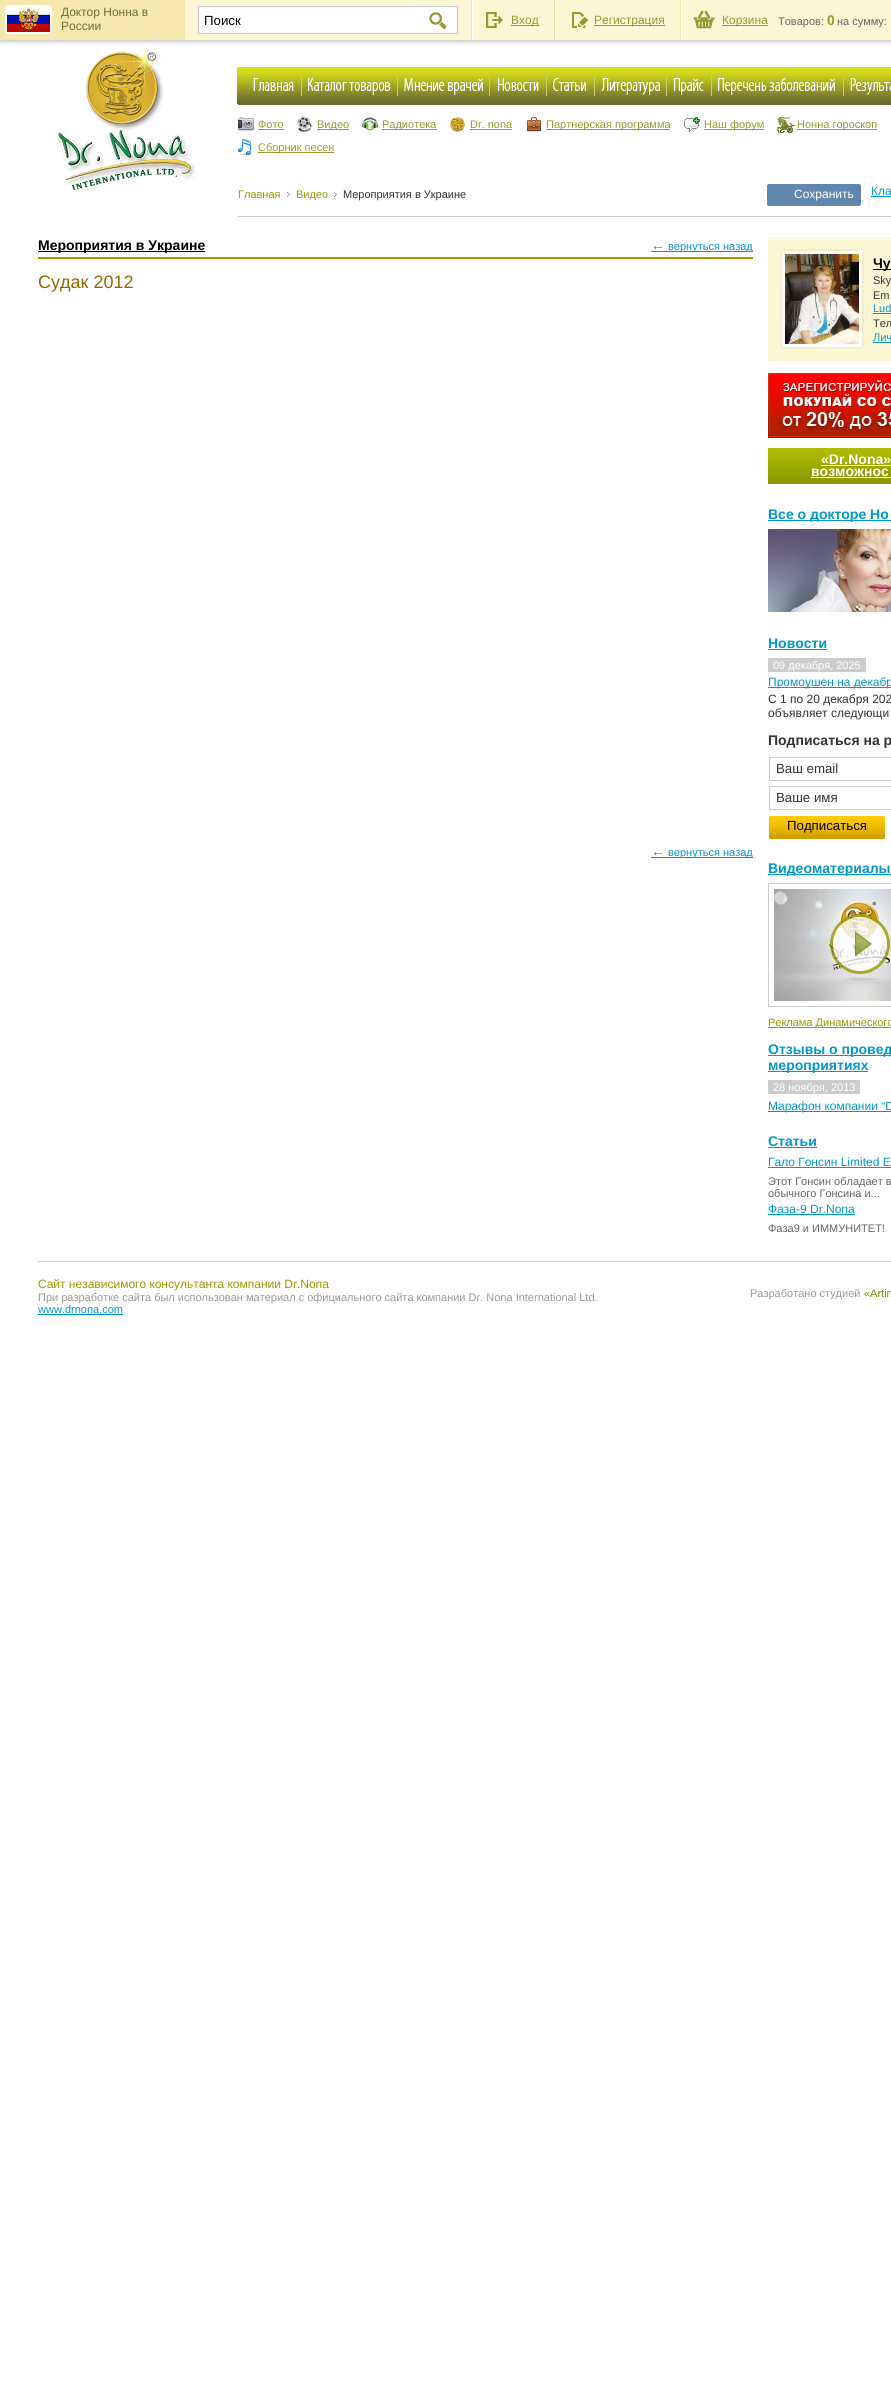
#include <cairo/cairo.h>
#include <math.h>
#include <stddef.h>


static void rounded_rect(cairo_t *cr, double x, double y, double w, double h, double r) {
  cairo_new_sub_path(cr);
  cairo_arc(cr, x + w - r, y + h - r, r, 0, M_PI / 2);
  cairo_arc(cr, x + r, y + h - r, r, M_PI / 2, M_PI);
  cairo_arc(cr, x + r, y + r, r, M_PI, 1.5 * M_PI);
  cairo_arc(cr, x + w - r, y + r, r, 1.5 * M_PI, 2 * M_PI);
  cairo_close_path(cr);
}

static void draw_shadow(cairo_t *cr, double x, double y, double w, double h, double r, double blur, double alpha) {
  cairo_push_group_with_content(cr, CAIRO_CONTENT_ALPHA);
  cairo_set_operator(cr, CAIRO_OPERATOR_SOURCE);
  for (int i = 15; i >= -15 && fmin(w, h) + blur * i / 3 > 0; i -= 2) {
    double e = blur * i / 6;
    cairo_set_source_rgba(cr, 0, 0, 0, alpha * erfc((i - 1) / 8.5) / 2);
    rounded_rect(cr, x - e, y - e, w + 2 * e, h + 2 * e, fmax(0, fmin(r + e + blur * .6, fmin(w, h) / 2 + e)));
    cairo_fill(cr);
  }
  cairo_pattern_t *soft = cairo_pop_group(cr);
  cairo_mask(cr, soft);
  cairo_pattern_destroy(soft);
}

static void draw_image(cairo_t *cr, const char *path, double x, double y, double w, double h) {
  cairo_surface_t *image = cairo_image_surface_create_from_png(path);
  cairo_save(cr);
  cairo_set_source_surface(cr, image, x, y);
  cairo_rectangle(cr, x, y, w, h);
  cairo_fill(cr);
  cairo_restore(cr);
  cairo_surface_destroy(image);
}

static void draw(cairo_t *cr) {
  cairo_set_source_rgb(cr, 1, 1, 1);
  cairo_paint(cr);
  draw_image(cr, "images/6.png", 57, 40, 140, 151);
  cairo_set_source_rgb(cr, 24 / 255.0, 24 / 255.0, 25 / 255.0);
  draw_shadow(cr, 0, 0, 891, 40, 0, 3, 0.47);
  cairo_set_source_rgb(cr, 253 / 255.0, 246 / 255.0, 212 / 255.0);
  cairo_rectangle(cr, 185, 0, 706, 40);
  cairo_fill(cr);
  cairo_set_source_rgb(cr, 245 / 255.0, 233 / 255.0, 176 / 255.0);
  cairo_rectangle(cr, 0, 0, 185, 40);
  cairo_fill(cr);
  rounded_rect(cr, 6, 6, 45, 27, 2);
  cairo_set_source_rgb(cr, 1, 1, 1);
  cairo_stroke(cr);
  draw_image(cr, "images/1.png", 7, 7, 43, 25);
  cairo_rectangle(cr, 198.5, 6.5, 259, 27);
  cairo_fill_preserve(cr);
  cairo_set_source_rgb(cr, 204 / 255.0, 204 / 255.0, 204 / 255.0);
  cairo_set_line_width(cr, 1);
  cairo_stroke(cr);
  draw_image(cr, "images/2.png", 429, 12, 18, 17);
  cairo_set_source_rgb(cr, 245 / 255.0, 233 / 255.0, 176 / 255.0);
  cairo_rectangle(cr, 471, 0, 1, 40);
  cairo_fill(cr);
  draw_image(cr, "images/3.png", 486, 12, 17, 16);
  cairo_set_source_rgb(cr, 1, 1, 1);
  cairo_rectangle(cr, 472, 0, 1, 40);
  cairo_fill(cr);
  cairo_set_source_rgb(cr, 153 / 255.0, 153 / 255.0, 51 / 255.0);
  cairo_rectangle(cr, 511, 25, 28, 1);
  cairo_fill(cr);
  cairo_set_source_rgb(cr, 245 / 255.0, 233 / 255.0, 176 / 255.0);
  cairo_rectangle(cr, 554, 0, 1, 40);
  cairo_fill(cr);
  draw_image(cr, "images/4.png", 572, 12, 16, 16);
  cairo_set_source_rgb(cr, 1, 1, 1);
  cairo_rectangle(cr, 555, 0, 1, 40);
  cairo_fill(cr);
  cairo_set_source_rgb(cr, 153 / 255.0, 153 / 255.0, 51 / 255.0);
  cairo_rectangle(cr, 594, 25, 71, 1);
  cairo_fill(cr);
  cairo_set_source_rgb(cr, 245 / 255.0, 233 / 255.0, 176 / 255.0);
  cairo_rectangle(cr, 680, 0, 1, 40);
  cairo_fill(cr);
  draw_image(cr, "images/5.png", 693, 10, 22, 19);
  cairo_set_source_rgb(cr, 1, 1, 1);
  cairo_rectangle(cr, 681, 0, 1, 40);
  cairo_fill(cr);
  cairo_set_source_rgb(cr, 153 / 255.0, 153 / 255.0, 51 / 255.0);
  cairo_rectangle(cr, 722, 25, 46, 1);
  cairo_fill(cr);
  draw_image(cr, "images/7.png", 238, 67, 653, 38);
  draw_image(cr, "images/8.png", 237, 68, 1, 36);
  draw_image(cr, "images/9.png", 253, 75, 49, 21);
  draw_image(cr, "images/10.png", 308, 75, 90, 21);
  draw_image(cr, "images/11.png", 404, 75, 86, 21);
  draw_image(cr, "images/12.png", 498, 75, 49, 21);
  draw_image(cr, "images/13.png", 553, 75, 42, 21);
  draw_image(cr, "images/14.png", 601, 75, 66, 21);
  draw_image(cr, "images/15.png", 674, 75, 38, 21);
  draw_image(cr, "images/16.png", 718, 75, 126, 21);
  draw_image(cr, "images/17.png", 850, 78, 41, 17);
  draw_image(cr, "images/18.png", 238, 117, 16, 14);
  cairo_rectangle(cr, 258, 129, 26, 1);
  cairo_fill(cr);
  draw_image(cr, "images/19.png", 297, 116, 15, 16);
  cairo_rectangle(cr, 317, 129, 32, 1);
  cairo_fill(cr);
  draw_image(cr, "images/20.png", 362, 117, 16, 14);
  cairo_rectangle(cr, 382, 129, 55, 1);
  cairo_fill(cr);
  draw_image(cr, "images/21.png", 450, 117, 15, 15);
  cairo_rectangle(cr, 470, 129, 42, 1);
  cairo_fill(cr);
  draw_image(cr, "images/22.png", 526, 117, 16, 15);
  cairo_rectangle(cr, 546, 129, 124, 1);
  cairo_fill(cr);
  draw_image(cr, "images/23.png", 684, 117, 16, 15);
  cairo_rectangle(cr, 704, 129, 60, 1);
  cairo_fill(cr);
  draw_image(cr, "images/24.png", 777, 116, 18, 17);
  cairo_rectangle(cr, 797, 129, 80, 1);
  cairo_fill(cr);
  draw_image(cr, "images/25.png", 238, 139, 14, 16);
  cairo_rectangle(cr, 258, 152, 76, 1);
  cairo_fill(cr);
  cairo_set_source_rgb(cr, 204 / 255.0, 204 / 255.0, 204 / 255.0);
  cairo_rectangle(cr, 238, 216, 653, 1);
  cairo_fill(cr);
  draw_image(cr, "images/26.png", 287, 192, 3, 5);
  draw_image(cr, "images/26.png", 334, 192, 3, 5);
  cairo_set_source_rgb(cr, 98 / 255.0, 135 / 255.0, 174 / 255.0);
  cairo_new_path(cr);
  cairo_move_to(cr, 769, 184);
  cairo_line_to(cr, 794, 184);
  cairo_line_to(cr, 794, 206);
  cairo_line_to(cr, 769, 206);
  cairo_curve_to(cr, 768, 206, 767, 205, 767, 204);
  cairo_line_to(cr, 767, 186);
  cairo_curve_to(cr, 767, 185, 768, 184, 769, 184);
  cairo_close_path(cr);
  cairo_fill(cr);
  cairo_new_path(cr);
  cairo_move_to(cr, 794, 184);
  cairo_line_to(cr, 859, 184);
  cairo_curve_to(cr, 860, 184, 861, 185, 861, 186);
  cairo_line_to(cr, 861, 204);
  cairo_curve_to(cr, 861, 205, 860, 206, 859, 206);
  cairo_line_to(cr, 794, 206);
  cairo_close_path(cr);
  cairo_fill(cr);
  cairo_set_source_rgb(cr, 0, 153 / 255.0, 204 / 255.0);
  cairo_rectangle(cr, 871, 196, 20, 1);
  cairo_fill(cr);
  cairo_set_source_rgb(cr, 153 / 255.0, 153 / 255.0, 0);
  cairo_rectangle(cr, 38, 257, 715, 2);
  cairo_fill(cr);
  cairo_set_source_rgb(cr, 0, 0, 0);
  cairo_rectangle(cr, 38, 251, 167, 1);
  cairo_fill(cr);
  cairo_set_source_rgb(cr, 0, 153 / 255.0, 204 / 255.0);
  cairo_rectangle(cr, 651, 251, 102, 1);
  cairo_fill(cr);
  cairo_rectangle(cr, 651, 857, 102, 1);
  cairo_fill(cr);
  cairo_set_source_rgb(cr, 253 / 255.0, 246 / 255.0, 212 / 255.0);
  cairo_rectangle(cr, 768, 237, 123, 124);
  cairo_fill(cr);
  draw_image(cr, "images/27.png", 780, 249, 84, 100);
  cairo_set_source_rgb(cr, 0, 0, 0);
  cairo_rectangle(cr, 873, 269, 18, 1);
  cairo_fill(cr);
  cairo_set_source_rgb(cr, 0, 153 / 255.0, 204 / 255.0);
  cairo_rectangle(cr, 873, 313, 18, 1);
  cairo_fill(cr);
  cairo_rectangle(cr, 873, 342, 18, 1);
  cairo_fill(cr);
  draw_image(cr, "images/28.png", 768, 373, 123, 65);
  draw_image(cr, "images/29.png", 768, 448, 123, 36);
  cairo_set_source_rgb(cr, 1, 1, 1);
  cairo_rectangle(cr, 821, 465, 70, 1);
  cairo_fill(cr);
  cairo_rectangle(cr, 811, 477, 80, 1);
  cairo_fill(cr);
  cairo_set_source_rgb(cr, 0, 153 / 255.0, 204 / 255.0);
  cairo_rectangle(cr, 768, 520, 123, 1);
  cairo_fill(cr);
  draw_image(cr, "images/30.png", 768, 529, 123, 83);
  cairo_rectangle(cr, 768, 649, 59, 1);
  cairo_fill(cr);
  cairo_set_source_rgb(cr, 204 / 255.0, 204 / 255.0, 204 / 255.0);
  cairo_rectangle(cr, 768, 658, 98, 14);
  cairo_fill(cr);
  cairo_set_source_rgb(cr, 0, 153 / 255.0, 204 / 255.0);
  cairo_rectangle(cr, 768, 687, 123, 1);
  cairo_fill(cr);
  cairo_rectangle(cr, 769.5, 757.5, 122, 23);
  cairo_set_source_rgb(cr, 204 / 255.0, 204 / 255.0, 204 / 255.0);
  cairo_stroke(cr);
  cairo_rectangle(cr, 769.5, 786.5, 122, 23);
  cairo_stroke(cr);
  draw_image(cr, "images/31.png", 770, 816, 114, 23);
  draw_image(cr, "images/32.png", 768, 816, 2, 23);
  draw_image(cr, "images/33.png", 884, 816, 2, 23);
  cairo_set_source_rgb(cr, 0, 153 / 255.0, 204 / 255.0);
  cairo_rectangle(cr, 768, 874, 123, 1);
  cairo_fill(cr);
  cairo_rectangle(cr, 768.5, 883.5, 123, 123);
  cairo_set_source_rgb(cr, 204 / 255.0, 204 / 255.0, 204 / 255.0);
  cairo_stroke(cr);
  draw_image(cr, "images/34.png", 774, 889, 117, 112);
  draw_image(cr, "images/35.png", 830, 914, 60, 60);
  cairo_set_source_rgb(cr, 153 / 255.0, 153 / 255.0, 0);
  cairo_rectangle(cr, 768, 1027, 123, 1);
  cairo_fill(cr);
  cairo_set_source_rgb(cr, 0, 153 / 255.0, 204 / 255.0);
  cairo_rectangle(cr, 768, 1055, 123, 1);
  cairo_fill(cr);
  cairo_rectangle(cr, 768, 1071, 100, 1);
  cairo_fill(cr);
  cairo_set_source_rgb(cr, 204 / 255.0, 204 / 255.0, 204 / 255.0);
  cairo_rectangle(cr, 768, 1080, 92, 14);
  cairo_fill(cr);
  cairo_set_source_rgb(cr, 0, 153 / 255.0, 204 / 255.0);
  cairo_rectangle(cr, 768, 1111, 123, 1);
  cairo_fill(cr);
  cairo_rectangle(cr, 768, 1147, 49, 1);
  cairo_fill(cr);
  cairo_rectangle(cr, 768, 1167, 123, 1);
  cairo_fill(cr);
  cairo_rectangle(cr, 768, 1214, 87, 1);
  cairo_fill(cr);
  cairo_set_source_rgb(cr, 204 / 255.0, 204 / 255.0, 204 / 255.0);
  cairo_rectangle(cr, 38, 1261, 853, 1);
  cairo_fill(cr);
  cairo_set_source_rgb(cr, 0, 153 / 255.0, 204 / 255.0);
  cairo_rectangle(cr, 38, 1314, 85, 1);
  cairo_fill(cr);
  cairo_select_font_face(cr, "Liberation Sans", CAIRO_FONT_SLANT_NORMAL, CAIRO_FONT_WEIGHT_NORMAL);
  cairo_set_font_size(cr, 12);
  cairo_set_source_rgb(cr, 108 / 255.0, 109 / 255.0, 53 / 255.0);
  cairo_move_to(cr, 61, 16);
  cairo_show_text(cr, "Доктор Нонна в");
  cairo_move_to(cr, 61, 30);
  cairo_show_text(cr, "России");
  cairo_set_font_size(cr, 13.25);
  cairo_set_source_rgb(cr, 0, 0, 0);
  cairo_move_to(cr, 204, 25);
  cairo_show_text(cr, "Поиск");
  cairo_set_font_size(cr, 12);
  cairo_set_source_rgb(cr, 153 / 255.0, 153 / 255.0, 51 / 255.0);
  cairo_move_to(cr, 511, 24);
  cairo_show_text(cr, "Вход");
  cairo_move_to(cr, 594, 24);
  cairo_show_text(cr, "Регистрация");
  cairo_move_to(cr, 722, 24);
  cairo_show_text(cr, "Корзина");
  cairo_set_font_size(cr, 11);
  cairo_set_source_rgb(cr, 102 / 255.0, 102 / 255.0, 102 / 255.0);
  cairo_move_to(cr, 778, 25);
  cairo_show_text(cr, "Товаров:");
  cairo_select_font_face(cr, "Liberation Sans", CAIRO_FONT_SLANT_NORMAL, CAIRO_FONT_WEIGHT_BOLD);
  cairo_set_font_size(cr, 14);
  cairo_set_source_rgb(cr, 153 / 255.0, 153 / 255.0, 51 / 255.0);
  cairo_move_to(cr, 827, 25);
  cairo_show_text(cr, "0");
  cairo_select_font_face(cr, "Liberation Sans", CAIRO_FONT_SLANT_NORMAL, CAIRO_FONT_WEIGHT_NORMAL);
  cairo_set_font_size(cr, 11);
  cairo_set_source_rgb(cr, 102 / 255.0, 102 / 255.0, 102 / 255.0);
  cairo_move_to(cr, 837, 25);
  cairo_show_text(cr, "на сумму:");
  cairo_set_source_rgb(cr, 153 / 255.0, 153 / 255.0, 51 / 255.0);
  cairo_move_to(cr, 258, 128);
  cairo_show_text(cr, "Фото");
  cairo_move_to(cr, 317, 128);
  cairo_show_text(cr, "Видео");
  cairo_move_to(cr, 382, 128);
  cairo_show_text(cr, "Радиотека");
  cairo_move_to(cr, 470, 128);
  cairo_show_text(cr, "Dr. nona");
  cairo_move_to(cr, 546, 128);
  cairo_show_text(cr, "Партнерская программа");
  cairo_move_to(cr, 704, 128);
  cairo_show_text(cr, "Наш форум");
  cairo_move_to(cr, 797, 128);
  cairo_show_text(cr, "Нонна гороскоп");
  cairo_move_to(cr, 258, 151);
  cairo_show_text(cr, "Сборник песен");
  cairo_set_source_rgb(cr, 153 / 255.0, 153 / 255.0, 0);
  cairo_move_to(cr, 238, 198);
  cairo_show_text(cr, "Главная");
  cairo_move_to(cr, 296, 198);
  cairo_show_text(cr, "Видео");
  cairo_set_source_rgb(cr, 51 / 255.0, 51 / 255.0, 51 / 255.0);
  cairo_move_to(cr, 343, 198);
  cairo_show_text(cr, "Мероприятия в Украине");
  cairo_set_font_size(cr, 12);
  cairo_set_source_rgb(cr, 1, 1, 1);
  cairo_move_to(cr, 794, 198);
  cairo_show_text(cr, "Сохранить");
  cairo_set_source_rgb(cr, 0, 153 / 255.0, 204 / 255.0);
  cairo_move_to(cr, 871, 195);
  cairo_show_text(cr, "Кла");
  cairo_select_font_face(cr, "Liberation Sans", CAIRO_FONT_SLANT_NORMAL, CAIRO_FONT_WEIGHT_BOLD);
  cairo_set_font_size(cr, 14);
  cairo_set_source_rgb(cr, 0, 0, 0);
  cairo_move_to(cr, 38, 250);
  cairo_show_text(cr, "Мероприятия в Украине");
  cairo_select_font_face(cr, "Liberation Sans", CAIRO_FONT_SLANT_NORMAL, CAIRO_FONT_WEIGHT_NORMAL);
  cairo_set_source_rgb(cr, 0, 153 / 255.0, 204 / 255.0);
  cairo_move_to(cr, 651, 250);
  cairo_show_text(cr, "←");
  cairo_set_font_size(cr, 11);
  cairo_move_to(cr, 668, 250);
  cairo_show_text(cr, "вернуться назад");
  cairo_set_font_size(cr, 18);
  cairo_set_source_rgb(cr, 153 / 255.0, 102 / 255.0, 0);
  cairo_move_to(cr, 38, 288);
  cairo_show_text(cr, "Cудак 2012");
  cairo_set_font_size(cr, 14);
  cairo_set_source_rgb(cr, 0, 153 / 255.0, 204 / 255.0);
  cairo_move_to(cr, 651, 856);
  cairo_show_text(cr, "←");
  cairo_set_font_size(cr, 11);
  cairo_move_to(cr, 668, 856);
  cairo_show_text(cr, "вернуться назад");
  cairo_select_font_face(cr, "Liberation Sans", CAIRO_FONT_SLANT_NORMAL, CAIRO_FONT_WEIGHT_BOLD);
  cairo_set_font_size(cr, 14);
  cairo_set_source_rgb(cr, 0, 0, 0);
  cairo_move_to(cr, 873, 268);
  cairo_show_text(cr, "Чу");
  cairo_select_font_face(cr, "Liberation Sans", CAIRO_FONT_SLANT_NORMAL, CAIRO_FONT_WEIGHT_NORMAL);
  cairo_set_font_size(cr, 11);
  cairo_set_source_rgb(cr, 51 / 255.0, 51 / 255.0, 51 / 255.0);
  cairo_move_to(cr, 873, 284);
  cairo_show_text(cr, "Sky");
  cairo_move_to(cr, 873, 299);
  cairo_show_text(cr, "Em");
  cairo_set_source_rgb(cr, 0, 153 / 255.0, 204 / 255.0);
  cairo_move_to(cr, 873, 312);
  cairo_show_text(cr, "Lud");
  cairo_set_source_rgb(cr, 51 / 255.0, 51 / 255.0, 51 / 255.0);
  cairo_move_to(cr, 873, 327);
  cairo_show_text(cr, "Тел");
  cairo_set_source_rgb(cr, 0, 153 / 255.0, 204 / 255.0);
  cairo_move_to(cr, 873, 341);
  cairo_show_text(cr, "Лич");
  cairo_select_font_face(cr, "Liberation Sans", CAIRO_FONT_SLANT_NORMAL, CAIRO_FONT_WEIGHT_BOLD);
  cairo_set_font_size(cr, 14);
  cairo_set_source_rgb(cr, 1, 1, 1);
  cairo_move_to(cr, 821, 464);
  cairo_show_text(cr, "«Dr.Nona»");
  cairo_move_to(cr, 811, 476);
  cairo_show_text(cr, "возможнос");
  cairo_set_source_rgb(cr, 0, 153 / 255.0, 204 / 255.0);
  cairo_move_to(cr, 768, 519);
  cairo_show_text(cr, "Все о докторе Но");
  cairo_move_to(cr, 768, 648);
  cairo_show_text(cr, "Новости");
  cairo_select_font_face(cr, "Liberation Sans", CAIRO_FONT_SLANT_NORMAL, CAIRO_FONT_WEIGHT_NORMAL);
  cairo_set_font_size(cr, 11);
  cairo_set_source_rgb(cr, 1, 1, 1);
  cairo_move_to(cr, 773, 669);
  cairo_show_text(cr, "09 декабря, 2025");
  cairo_set_font_size(cr, 12);
  cairo_set_source_rgb(cr, 0, 153 / 255.0, 204 / 255.0);
  cairo_move_to(cr, 768, 686);
  cairo_show_text(cr, "Промоушен на декабр");
  cairo_set_source_rgb(cr, 51 / 255.0, 51 / 255.0, 51 / 255.0);
  cairo_move_to(cr, 768, 703);
  cairo_show_text(cr, "С 1 по 20 декабря 202");
  cairo_move_to(cr, 768, 717);
  cairo_show_text(cr, "объявляет следующи");
  cairo_select_font_face(cr, "Liberation Sans", CAIRO_FONT_SLANT_NORMAL, CAIRO_FONT_WEIGHT_BOLD);
  cairo_set_font_size(cr, 14);
  cairo_move_to(cr, 768, 745);
  cairo_show_text(cr, "Подписаться на р");
  cairo_select_font_face(cr, "Liberation Sans", CAIRO_FONT_SLANT_NORMAL, CAIRO_FONT_WEIGHT_NORMAL);
  cairo_set_font_size(cr, 13.25);
  cairo_move_to(cr, 776, 773);
  cairo_show_text(cr, "Ваш email");
  cairo_move_to(cr, 776, 802);
  cairo_show_text(cr, "Ваше имя");
  cairo_set_source_rgb(cr, 0, 0, 0);
  cairo_move_to(cr, 787, 830);
  cairo_show_text(cr, "Подписаться");
  cairo_select_font_face(cr, "Liberation Sans", CAIRO_FONT_SLANT_NORMAL, CAIRO_FONT_WEIGHT_BOLD);
  cairo_set_font_size(cr, 14);
  cairo_set_source_rgb(cr, 0, 153 / 255.0, 204 / 255.0);
  cairo_move_to(cr, 768, 873);
  cairo_show_text(cr, "Видеоматериалы");
  cairo_select_font_face(cr, "Liberation Sans", CAIRO_FONT_SLANT_NORMAL, CAIRO_FONT_WEIGHT_NORMAL);
  cairo_set_font_size(cr, 11);
  cairo_set_source_rgb(cr, 153 / 255.0, 153 / 255.0, 0);
  cairo_move_to(cr, 768, 1026);
  cairo_show_text(cr, "Реклама Динамического");
  cairo_select_font_face(cr, "Liberation Sans", CAIRO_FONT_SLANT_NORMAL, CAIRO_FONT_WEIGHT_BOLD);
  cairo_set_font_size(cr, 14);
  cairo_set_source_rgb(cr, 0, 153 / 255.0, 204 / 255.0);
  cairo_move_to(cr, 768, 1054);
  cairo_show_text(cr, "Отзывы о провед");
  cairo_move_to(cr, 768, 1070);
  cairo_show_text(cr, "мероприятиях");
  cairo_select_font_face(cr, "Liberation Sans", CAIRO_FONT_SLANT_NORMAL, CAIRO_FONT_WEIGHT_NORMAL);
  cairo_set_font_size(cr, 11);
  cairo_set_source_rgb(cr, 1, 1, 1);
  cairo_move_to(cr, 773, 1091);
  cairo_show_text(cr, "28 ноября, 2013");
  cairo_set_font_size(cr, 12);
  cairo_set_source_rgb(cr, 0, 153 / 255.0, 204 / 255.0);
  cairo_move_to(cr, 768, 1110);
  cairo_show_text(cr, "Марафон компании “D");
  cairo_select_font_face(cr, "Liberation Sans", CAIRO_FONT_SLANT_NORMAL, CAIRO_FONT_WEIGHT_BOLD);
  cairo_set_font_size(cr, 14);
  cairo_move_to(cr, 768, 1146);
  cairo_show_text(cr, "Статьи");
  cairo_select_font_face(cr, "Liberation Sans", CAIRO_FONT_SLANT_NORMAL, CAIRO_FONT_WEIGHT_NORMAL);
  cairo_set_font_size(cr, 12);
  cairo_move_to(cr, 768, 1166);
  cairo_show_text(cr, "Гало Гонсин Limited E");
  cairo_set_font_size(cr, 11);
  cairo_set_source_rgb(cr, 102 / 255.0, 102 / 255.0, 102 / 255.0);
  cairo_move_to(cr, 768, 1185);
  cairo_show_text(cr, "Этот Гонсин обладает в");
  cairo_move_to(cr, 768, 1197);
  cairo_show_text(cr, "обычного Гонсина и...");
  cairo_set_font_size(cr, 12);
  cairo_set_source_rgb(cr, 0, 153 / 255.0, 204 / 255.0);
  cairo_move_to(cr, 768, 1213);
  cairo_show_text(cr, "Фаза-9 Dr.Nona");
  cairo_set_font_size(cr, 11);
  cairo_set_source_rgb(cr, 102 / 255.0, 102 / 255.0, 102 / 255.0);
  cairo_move_to(cr, 768, 1232);
  cairo_show_text(cr, "Фаза9 и ИММУНИТЕТ!");
  cairo_set_font_size(cr, 12);
  cairo_set_source_rgb(cr, 153 / 255.0, 153 / 255.0, 0);
  cairo_move_to(cr, 38, 1288);
  cairo_show_text(cr, "Сайт независимого консультанта компании Dr.Nona");
  cairo_set_font_size(cr, 11);
  cairo_set_source_rgb(cr, 153 / 255.0, 153 / 255.0, 153 / 255.0);
  cairo_move_to(cr, 38, 1301);
  cairo_show_text(cr, "При разработке сайта был использован материал с официального сайта компании Dr. Nona International Ltd.");
  cairo_move_to(cr, 750, 1297);
  cairo_show_text(cr, "Разработано студией");
  cairo_set_source_rgb(cr, 102 / 255.0, 153 / 255.0, 0);
  cairo_move_to(cr, 864, 1297);
  cairo_show_text(cr, "«Artin");
  cairo_set_source_rgb(cr, 0, 153 / 255.0, 204 / 255.0);
  cairo_move_to(cr, 38, 1313);
  cairo_show_text(cr, "www.drnona.com");
}

int main(void) {
  cairo_surface_t *surface = cairo_image_surface_create(CAIRO_FORMAT_RGB24, 891, 2389);
  cairo_t *cr = cairo_create(surface);
  cairo_font_options_t *options = cairo_font_options_create();
  cairo_font_options_set_hint_metrics(options, CAIRO_HINT_METRICS_OFF);
  cairo_font_options_set_hint_style(options, CAIRO_HINT_STYLE_NONE);
  cairo_set_font_options(cr, options);
  cairo_set_miter_limit(cr, 4);
  draw(cr);
  cairo_surface_write_to_png(surface, "out.png");
  cairo_font_options_destroy(options);
  cairo_destroy(cr);
  cairo_surface_destroy(surface);
  return 0;
}
